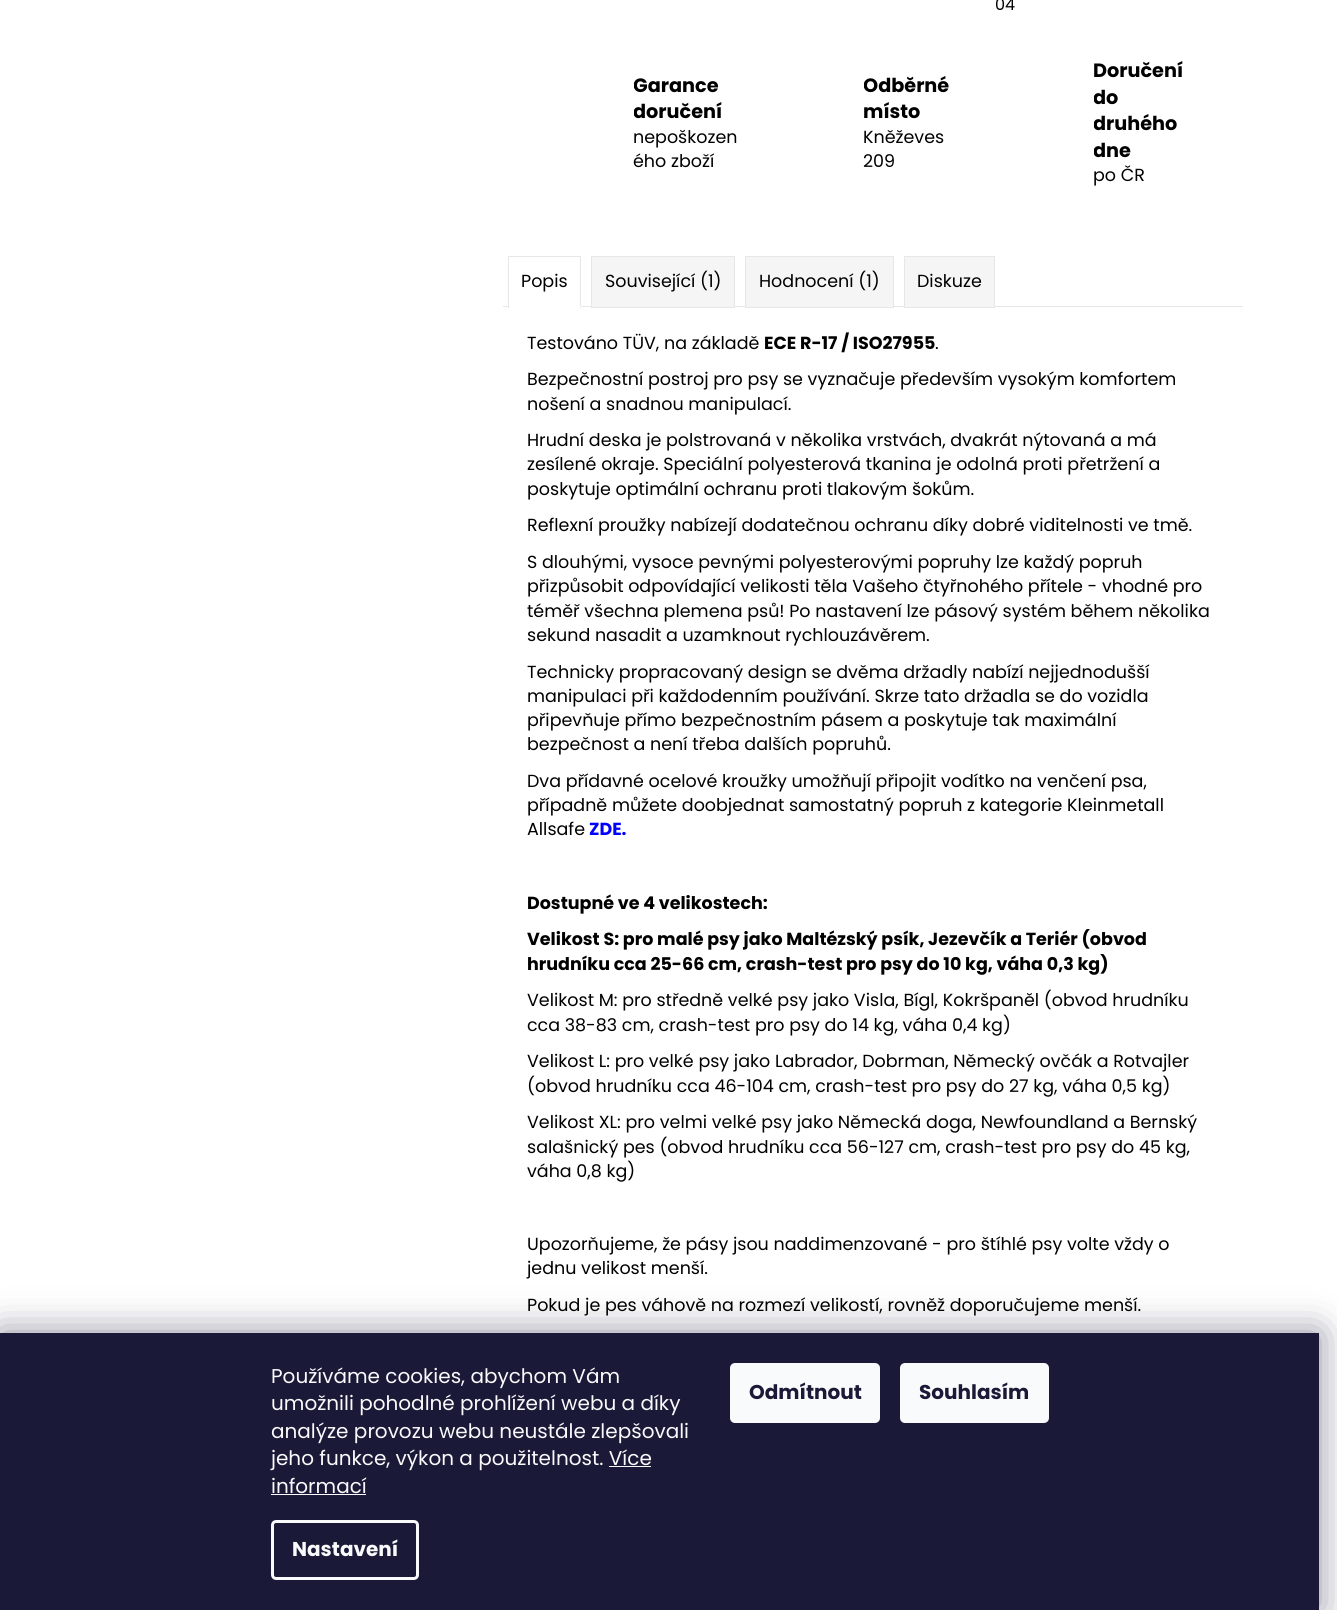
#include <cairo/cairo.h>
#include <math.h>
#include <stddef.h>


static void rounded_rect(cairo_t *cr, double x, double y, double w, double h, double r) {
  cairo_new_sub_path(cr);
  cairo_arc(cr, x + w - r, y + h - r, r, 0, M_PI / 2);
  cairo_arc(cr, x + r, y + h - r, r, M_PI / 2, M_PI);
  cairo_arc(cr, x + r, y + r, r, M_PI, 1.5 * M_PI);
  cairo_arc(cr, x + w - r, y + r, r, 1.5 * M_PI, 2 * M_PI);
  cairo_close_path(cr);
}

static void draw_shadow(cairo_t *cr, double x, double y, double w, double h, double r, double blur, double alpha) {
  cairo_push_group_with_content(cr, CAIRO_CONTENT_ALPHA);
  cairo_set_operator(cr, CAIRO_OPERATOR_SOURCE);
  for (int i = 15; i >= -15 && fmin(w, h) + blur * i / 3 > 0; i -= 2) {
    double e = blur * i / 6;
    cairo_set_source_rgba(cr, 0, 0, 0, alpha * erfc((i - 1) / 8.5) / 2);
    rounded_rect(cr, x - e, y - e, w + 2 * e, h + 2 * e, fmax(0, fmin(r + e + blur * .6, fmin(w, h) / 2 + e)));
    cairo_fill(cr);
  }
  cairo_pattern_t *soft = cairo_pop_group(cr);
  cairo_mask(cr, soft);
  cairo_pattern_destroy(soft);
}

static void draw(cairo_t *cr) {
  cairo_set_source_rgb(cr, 1, 1, 1);
  cairo_paint(cr);
  cairo_set_source_rgb(cr, 231 / 255.0, 231 / 255.0, 231 / 255.0);
  cairo_rectangle(cr, 503, 306, 740, 1);
  cairo_fill(cr);
  cairo_set_source_rgb(cr, 1, 1, 1);
  cairo_rectangle(cr, 509, 306, 71, 1);
  cairo_fill(cr);
  cairo_set_source_rgb(cr, 231 / 255.0, 231 / 255.0, 231 / 255.0);
  cairo_rectangle(cr, 508, 256, 73, 1);
  cairo_fill(cr);
  cairo_rectangle(cr, 580, 256, 1, 52);
  cairo_fill(cr);
  cairo_set_source_rgb(cr, 1, 1, 1);
  cairo_rectangle(cr, 508, 306, 73, 1);
  cairo_fill(cr);
  cairo_set_source_rgb(cr, 231 / 255.0, 231 / 255.0, 231 / 255.0);
  cairo_rectangle(cr, 508, 256, 1, 52);
  cairo_fill(cr);
  cairo_set_source_rgb(cr, 245 / 255.0, 245 / 255.0, 245 / 255.0);
  cairo_rectangle(cr, 591.5, 256.5, 143, 51);
  cairo_fill_preserve(cr);
  cairo_set_source_rgb(cr, 231 / 255.0, 231 / 255.0, 231 / 255.0);
  cairo_set_line_width(cr, 1);
  cairo_stroke(cr);
  cairo_set_source_rgb(cr, 245 / 255.0, 245 / 255.0, 245 / 255.0);
  cairo_rectangle(cr, 745.5, 256.5, 148, 51);
  cairo_fill_preserve(cr);
  cairo_set_source_rgb(cr, 231 / 255.0, 231 / 255.0, 231 / 255.0);
  cairo_stroke(cr);
  cairo_set_source_rgb(cr, 245 / 255.0, 245 / 255.0, 245 / 255.0);
  cairo_rectangle(cr, 904.5, 256.5, 90, 51);
  cairo_fill_preserve(cr);
  cairo_set_source_rgb(cr, 231 / 255.0, 231 / 255.0, 231 / 255.0);
  cairo_stroke(cr);
  cairo_set_source_rgb(cr, 27 / 255.0, 25 / 255.0, 57 / 255.0);
  draw_shadow(cr, 0, 1333, 1319, 277, 0, 19, 0.5);
  cairo_set_source_rgb(cr, 26 / 255.0, 25 / 255.0, 55 / 255.0);
  cairo_rectangle(cr, 0, 1333, 1319, 277);
  cairo_fill(cr);
  cairo_set_source_rgb(cr, 248 / 255.0, 250 / 255.0, 251 / 255.0);
  cairo_rectangle(cr, 609, 1466, 42, 1);
  cairo_fill(cr);
  cairo_rectangle(cr, 271, 1494, 95, 1);
  cairo_fill(cr);
  rounded_rect(cr, 272.5, 1521.5, 145, 57, 3.5);
  cairo_set_line_width(cr, 3);
  cairo_stroke(cr);
  rounded_rect(cr, 730, 1363, 150, 60, 5);
  cairo_fill(cr);
  rounded_rect(cr, 900, 1363, 149, 60, 5);
  cairo_fill(cr);
  cairo_select_font_face(cr, "Poppins", CAIRO_FONT_SLANT_NORMAL, CAIRO_FONT_WEIGHT_NORMAL);
  cairo_set_font_size(cr, 16);
  cairo_set_source_rgb(cr, 0, 0, 0);
  cairo_move_to(cr, 995, 10);
  cairo_show_text(cr, "04");
  cairo_save(cr);
  cairo_rectangle(cr, 634, 71, 124, 103);
  cairo_clip(cr);
  cairo_select_font_face(cr, "Poppins", CAIRO_FONT_SLANT_NORMAL, CAIRO_FONT_WEIGHT_BOLD);
  cairo_set_font_size(cr, 19.25);
  cairo_move_to(cr, 633, 92);
  cairo_show_text(cr, "Garance");
  cairo_move_to(cr, 633, 118);
  cairo_show_text(cr, "doručení");
  cairo_restore(cr);
  cairo_set_font_size(cr, 17.5);
  cairo_move_to(cr, 633, 143);
  cairo_show_text(cr, "nepoškozen");
  cairo_move_to(cr, 633, 167);
  cairo_show_text(cr, "ého zboží");
  cairo_save(cr);
  cairo_rectangle(cr, 864, 71, 124, 103);
  cairo_clip(cr);
  cairo_select_font_face(cr, "Poppins", CAIRO_FONT_SLANT_NORMAL, CAIRO_FONT_WEIGHT_BOLD);
  cairo_set_font_size(cr, 19.25);
  cairo_move_to(cr, 863, 92);
  cairo_show_text(cr, "Odběrné");
  cairo_restore(cr);
  cairo_select_font_face(cr, "Poppins", CAIRO_FONT_SLANT_NORMAL, CAIRO_FONT_WEIGHT_BOLD);
  cairo_set_font_size(cr, 19.25);
  cairo_move_to(cr, 863, 118);
  cairo_show_text(cr, "místo");
  cairo_select_font_face(cr, "Poppins", CAIRO_FONT_SLANT_NORMAL, CAIRO_FONT_WEIGHT_NORMAL);
  cairo_set_font_size(cr, 17.5);
  cairo_move_to(cr, 863, 143);
  cairo_show_text(cr, "Kněževes");
  cairo_move_to(cr, 863, 167);
  cairo_show_text(cr, "209");
  cairo_select_font_face(cr, "Poppins", CAIRO_FONT_SLANT_NORMAL, CAIRO_FONT_WEIGHT_BOLD);
  cairo_set_font_size(cr, 19.25);
  cairo_move_to(cr, 1093, 77);
  cairo_show_text(cr, "Doručení");
  cairo_save(cr);
  cairo_rectangle(cr, 1094, 58, 124, 131);
  cairo_clip(cr);
  cairo_move_to(cr, 1093, 104);
  cairo_show_text(cr, "do");
  cairo_move_to(cr, 1093, 130);
  cairo_show_text(cr, "druhého");
  cairo_move_to(cr, 1093, 157);
  cairo_show_text(cr, "dne");
  cairo_restore(cr);
  cairo_select_font_face(cr, "Poppins", CAIRO_FONT_SLANT_NORMAL, CAIRO_FONT_WEIGHT_NORMAL);
  cairo_set_font_size(cr, 17.5);
  cairo_move_to(cr, 1093, 181);
  cairo_show_text(cr, "po ČR");
  cairo_move_to(cr, 521, 287);
  cairo_show_text(cr, "Popis");
  cairo_move_to(cr, 605, 287);
  cairo_show_text(cr, "Související (1)");
  cairo_move_to(cr, 759, 287);
  cairo_show_text(cr, "Hodnocení (1)");
  cairo_move_to(cr, 917, 287);
  cairo_show_text(cr, "Diskuze");
  cairo_move_to(cr, 527, 349);
  cairo_show_text(cr, "Testováno TÜV, na základě");
  cairo_select_font_face(cr, "Poppins", CAIRO_FONT_SLANT_NORMAL, CAIRO_FONT_WEIGHT_BOLD);
  cairo_move_to(cr, 764, 349);
  cairo_show_text(cr, "ECE R-17 / ISO27955");
  cairo_select_font_face(cr, "Poppins", CAIRO_FONT_SLANT_NORMAL, CAIRO_FONT_WEIGHT_NORMAL);
  cairo_move_to(cr, 935, 349);
  cairo_show_text(cr, ".");
  cairo_move_to(cr, 527, 385);
  cairo_show_text(cr, "Bezpečnostní postroj pro psy se vyznačuje především vysokým komfortem");
  cairo_move_to(cr, 527, 410);
  cairo_show_text(cr, "nošení a snadnou manipulací.");
  cairo_move_to(cr, 527, 446);
  cairo_show_text(cr, "Hrudní deska je polstrovaná v několika vrstvách, dvakrát nýtovaná a má");
  cairo_move_to(cr, 527, 470);
  cairo_show_text(cr, "zesílené okraje. Speciální polyesterová tkanina je odolná proti přetržení a");
  cairo_move_to(cr, 527, 495);
  cairo_show_text(cr, "poskytuje optimální ochranu proti tlakovým šokům.");
  cairo_move_to(cr, 527, 531);
  cairo_show_text(cr, "Reflexní proužky nabízejí dodatečnou ochranu díky dobré viditelnosti ve tmě.");
  cairo_move_to(cr, 527, 568);
  cairo_show_text(cr, "S dlouhými, vysoce pevnými polyesterovými popruhy lze každý popruh");
  cairo_move_to(cr, 527, 592);
  cairo_show_text(cr, "přizpůsobit odpovídající velikosti těla Vašeho čtyřnohého přítele - vhodné pro");
  cairo_move_to(cr, 527, 617);
  cairo_show_text(cr, "téměř všechna plemena psů! Po nastavení lze pásový systém během několika");
  cairo_move_to(cr, 527, 641);
  cairo_show_text(cr, "sekund nasadit a uzamknout rychlouzávěrem.");
  cairo_move_to(cr, 527, 678);
  cairo_show_text(cr, "Technicky propracovaný design se dvěma držadly nabízí nejjednodušší");
  cairo_move_to(cr, 527, 702);
  cairo_show_text(cr, "manipulaci při každodenním používání. Skrze tato držadla se do vozidla");
  cairo_move_to(cr, 527, 726);
  cairo_show_text(cr, "připevňuje přímo bezpečnostním pásem a poskytuje tak maximální");
  cairo_move_to(cr, 527, 750);
  cairo_show_text(cr, "bezpečnost a není třeba dalších popruhů.");
  cairo_move_to(cr, 527, 787);
  cairo_show_text(cr, "Dva přídavné ocelové kroužky umožňují připojit vodítko na venčení psa,");
  cairo_move_to(cr, 527, 811);
  cairo_show_text(cr, "případně můžete doobjednat samostatný popruh z kategorie Kleinmetall");
  cairo_move_to(cr, 527, 835);
  cairo_show_text(cr, "Allsafe");
  cairo_select_font_face(cr, "Poppins", CAIRO_FONT_SLANT_NORMAL, CAIRO_FONT_WEIGHT_BOLD);
  cairo_set_source_rgb(cr, 0, 0, 1);
  cairo_move_to(cr, 589, 835);
  cairo_show_text(cr, "ZDE.");
  cairo_set_source_rgb(cr, 0, 0, 0);
  cairo_move_to(cr, 527, 909);
  cairo_show_text(cr, "Dostupné ve 4 velikostech:");
  cairo_move_to(cr, 527, 945);
  cairo_show_text(cr, "Velikost S: pro malé psy jako Maltézský psík, Jezevčík a Teriér (obvod");
  cairo_move_to(cr, 527, 970);
  cairo_show_text(cr, "hrudníku cca 25-66 cm, crash-test pro psy do 10 kg, váha 0,3 kg)");
  cairo_select_font_face(cr, "Poppins", CAIRO_FONT_SLANT_NORMAL, CAIRO_FONT_WEIGHT_NORMAL);
  cairo_move_to(cr, 527, 1006);
  cairo_show_text(cr, "Velikost M: pro středně velké psy jako Visla, Bígl, Kokršpaněl (obvod hrudníku");
  cairo_move_to(cr, 527, 1031);
  cairo_show_text(cr, "cca 38-83 cm, crash-test pro psy do 14 kg, váha 0,4 kg)");
  cairo_move_to(cr, 527, 1067);
  cairo_show_text(cr, "Velikost L: pro velké psy jako Labrador, Dobrman, Německý ovčák a Rotvajler");
  cairo_move_to(cr, 527, 1092);
  cairo_show_text(cr, "(obvod hrudníku cca 46-104 cm, crash-test pro psy do 27 kg, váha 0,5 kg)");
  cairo_move_to(cr, 527, 1128);
  cairo_show_text(cr, "Velikost XL: pro velmi velké psy jako Německá doga, Newfoundland a Bernský");
  cairo_move_to(cr, 527, 1153);
  cairo_show_text(cr, "salašnický pes (obvod hrudníku cca 56-127 cm, crash-test pro psy do 45 kg,");
  cairo_move_to(cr, 527, 1177);
  cairo_show_text(cr, "váha 0,8 kg)");
  cairo_move_to(cr, 527, 1250);
  cairo_show_text(cr, "Upozorňujeme, že pásy jsou naddimenzované - pro štíhlé psy volte vždy o");
  cairo_move_to(cr, 527, 1274);
  cairo_show_text(cr, "jednu velikost menší.");
  cairo_move_to(cr, 527, 1311);
  cairo_show_text(cr, "Pokud je pes váhově na rozmezí velikostí, rovněž doporučujeme menší.");
  cairo_set_font_size(cr, 20);
  cairo_set_source_rgb(cr, 248 / 255.0, 250 / 255.0, 251 / 255.0);
  cairo_move_to(cr, 271, 1383);
  cairo_show_text(cr, "Používáme cookies, abychom Vám");
  cairo_move_to(cr, 271, 1410);
  cairo_show_text(cr, "umožnili pohodlné prohlížení webu a díky");
  cairo_move_to(cr, 271, 1438);
  cairo_show_text(cr, "analýze provozu webu neustále zlepšovali");
  cairo_move_to(cr, 271, 1465);
  cairo_show_text(cr, "jeho funkce, výkon a použitelnost. Více");
  cairo_move_to(cr, 271, 1493);
  cairo_show_text(cr, "informací");
  cairo_select_font_face(cr, "Poppins", CAIRO_FONT_SLANT_NORMAL, CAIRO_FONT_WEIGHT_BOLD);
  cairo_move_to(cr, 292, 1556);
  cairo_show_text(cr, "Nastavení");
  cairo_set_source_rgb(cr, 26 / 255.0, 25 / 255.0, 55 / 255.0);
  cairo_move_to(cr, 749, 1399);
  cairo_show_text(cr, "Odmítnout");
  cairo_move_to(cr, 919, 1399);
  cairo_show_text(cr, "Souhlasím");
}

int main(void) {
  cairo_surface_t *surface = cairo_image_surface_create(CAIRO_FORMAT_RGB24, 1337, 1610);
  cairo_t *cr = cairo_create(surface);
  cairo_font_options_t *options = cairo_font_options_create();
  cairo_font_options_set_hint_metrics(options, CAIRO_HINT_METRICS_OFF);
  cairo_font_options_set_hint_style(options, CAIRO_HINT_STYLE_NONE);
  cairo_set_font_options(cr, options);
  cairo_set_miter_limit(cr, 4);
  draw(cr);
  cairo_surface_write_to_png(surface, "out.png");
  cairo_font_options_destroy(options);
  cairo_destroy(cr);
  cairo_surface_destroy(surface);
  return 0;
}
